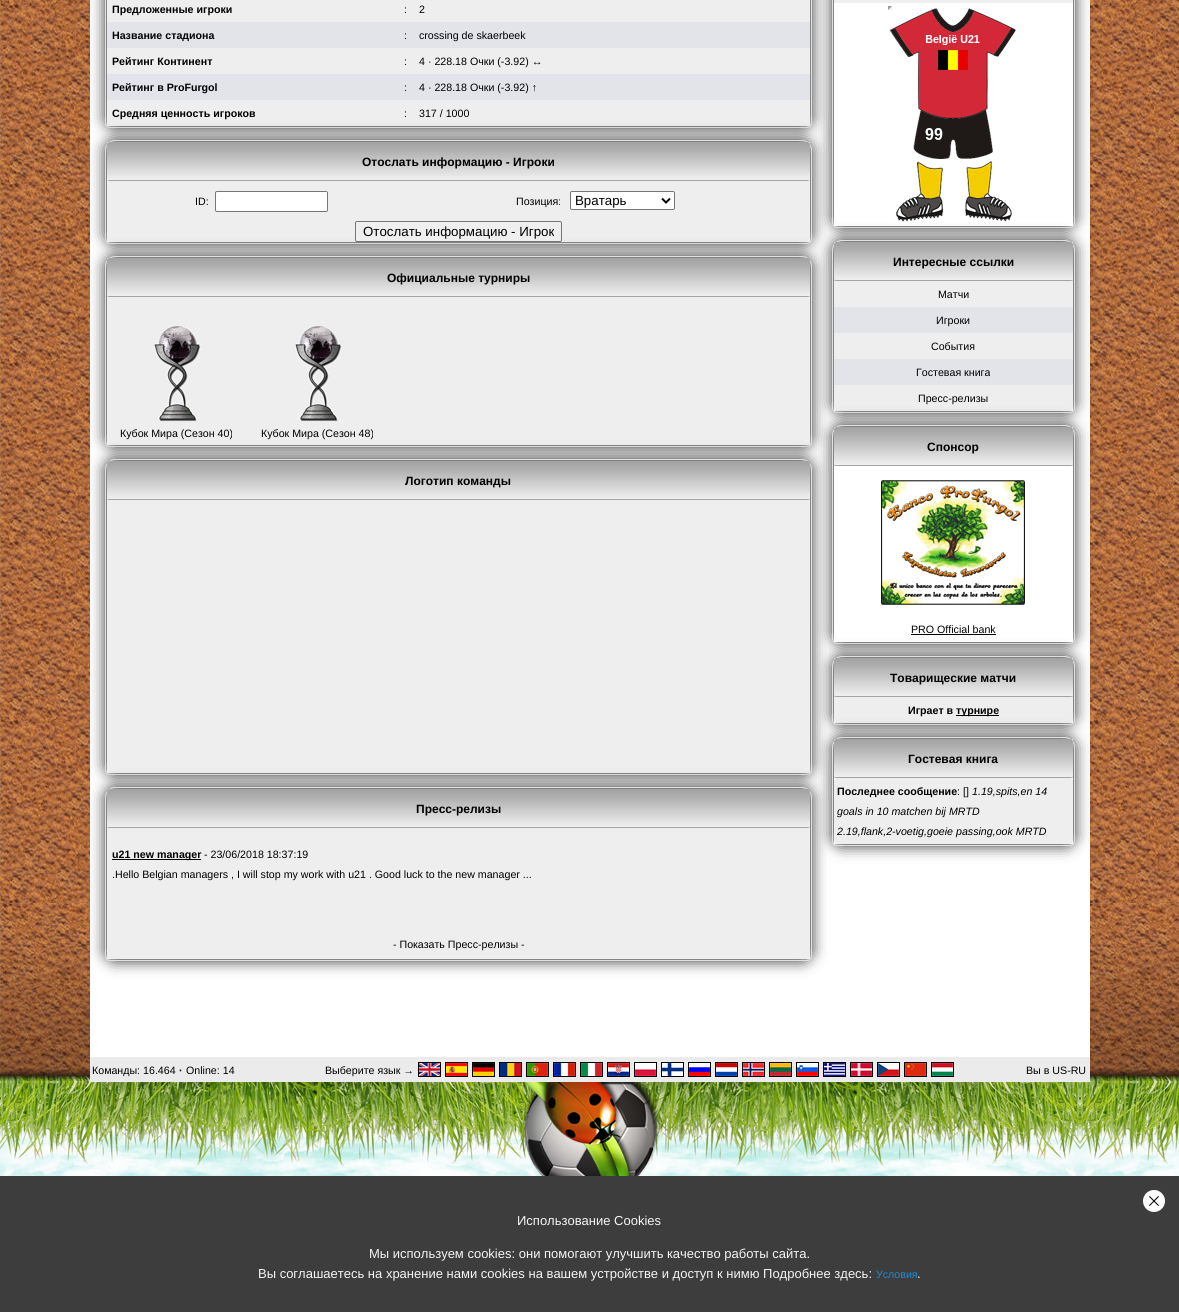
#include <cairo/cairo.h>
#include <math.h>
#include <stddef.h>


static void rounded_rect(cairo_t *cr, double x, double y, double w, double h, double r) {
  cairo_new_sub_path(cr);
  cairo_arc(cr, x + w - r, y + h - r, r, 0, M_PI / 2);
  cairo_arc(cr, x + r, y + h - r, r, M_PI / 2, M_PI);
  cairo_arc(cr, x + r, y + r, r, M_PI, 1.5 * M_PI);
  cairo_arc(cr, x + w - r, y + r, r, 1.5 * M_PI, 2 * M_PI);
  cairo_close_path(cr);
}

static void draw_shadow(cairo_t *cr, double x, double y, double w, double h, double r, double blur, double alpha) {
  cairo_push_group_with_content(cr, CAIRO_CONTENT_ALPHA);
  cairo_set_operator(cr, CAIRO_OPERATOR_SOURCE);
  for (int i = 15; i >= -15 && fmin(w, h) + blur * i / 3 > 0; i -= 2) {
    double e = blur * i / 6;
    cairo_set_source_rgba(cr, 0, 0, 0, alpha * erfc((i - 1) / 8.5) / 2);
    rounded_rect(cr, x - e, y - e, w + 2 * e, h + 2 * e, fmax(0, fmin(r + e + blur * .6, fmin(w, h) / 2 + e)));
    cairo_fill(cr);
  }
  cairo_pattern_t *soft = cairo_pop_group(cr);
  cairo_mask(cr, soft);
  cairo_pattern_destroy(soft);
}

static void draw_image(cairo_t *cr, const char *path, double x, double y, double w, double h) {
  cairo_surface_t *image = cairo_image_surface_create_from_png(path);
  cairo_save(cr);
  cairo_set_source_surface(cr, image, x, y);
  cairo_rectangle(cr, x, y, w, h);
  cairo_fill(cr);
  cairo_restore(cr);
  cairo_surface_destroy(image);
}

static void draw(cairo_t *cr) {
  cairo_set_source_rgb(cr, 1, 1, 1);
  cairo_paint(cr);
  draw_image(cr, "images/1.png", 0, 0, 1179, 903);
  draw_image(cr, "images/28.png", 0, 903, 1179, 179);
  cairo_set_source_rgb(cr, 1, 1, 1);
  cairo_rectangle(cr, 90, 0, 1000, 1057);
  cairo_fill(cr);
  cairo_set_source_rgb(cr, 0, 0, 0);
  draw_shadow(cr, 105, -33, 707, 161, 10, 7.5, 0.8);
  cairo_new_path(cr);
  cairo_move_to(cr, 115, -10.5);
  cairo_line_to(cr, 802, -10.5);
  cairo_curve_to(cr, 807, -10.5, 811.5, -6, 811.5, -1);
  cairo_line_to(cr, 811.5, 123);
  cairo_curve_to(cr, 811.5, 125.5, 809.5, 127.5, 807, 127.5);
  cairo_line_to(cr, 110, 127.5);
  cairo_curve_to(cr, 107.5, 127.5, 105.5, 125.5, 105.5, 123);
  cairo_line_to(cr, 105.5, -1);
  cairo_curve_to(cr, 105.5, -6, 110, -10.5, 115, -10.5);
  cairo_close_path(cr);
  cairo_set_source_rgb(cr, 225 / 255.0, 225 / 255.0, 225 / 255.0);
  cairo_set_line_width(cr, 1);
  cairo_stroke(cr);
  cairo_set_source_rgb(cr, 238 / 255.0, 238 / 255.0, 238 / 255.0);
  cairo_rectangle(cr, 107, 0, 703, 22);
  cairo_fill(cr);
  cairo_set_source_rgb(cr, 226 / 255.0, 228 / 255.0, 234 / 255.0);
  cairo_rectangle(cr, 107, 22, 703, 26);
  cairo_fill(cr);
  cairo_set_source_rgb(cr, 238 / 255.0, 238 / 255.0, 238 / 255.0);
  cairo_rectangle(cr, 107, 48, 703, 26);
  cairo_fill(cr);
  cairo_set_source_rgb(cr, 226 / 255.0, 228 / 255.0, 234 / 255.0);
  cairo_rectangle(cr, 107, 74, 703, 26);
  cairo_fill(cr);
  cairo_set_source_rgb(cr, 238 / 255.0, 238 / 255.0, 238 / 255.0);
  cairo_rectangle(cr, 107, 100, 703, 26);
  cairo_fill(cr);
  cairo_set_source_rgb(cr, 0, 0, 0);
  draw_shadow(cr, 105, 140, 707, 104, 10, 7.5, 0.8);
  cairo_new_path(cr);
  cairo_move_to(cr, 115, 140.5);
  cairo_line_to(cr, 802, 140.5);
  cairo_curve_to(cr, 807, 140.5, 811.5, 145, 811.5, 150);
  cairo_line_to(cr, 811.5, 239);
  cairo_curve_to(cr, 811.5, 241.5, 809.5, 243.5, 807, 243.5);
  cairo_line_to(cr, 110, 243.5);
  cairo_curve_to(cr, 107.5, 243.5, 105.5, 241.5, 105.5, 239);
  cairo_line_to(cr, 105.5, 150);
  cairo_curve_to(cr, 105.5, 145, 110, 140.5, 115, 140.5);
  cairo_close_path(cr);
  cairo_set_source_rgb(cr, 225 / 255.0, 225 / 255.0, 225 / 255.0);
  cairo_stroke(cr);
  cairo_set_source_rgb(cr, 238 / 255.0, 238 / 255.0, 238 / 255.0);
  cairo_rectangle(cr, 107, 142, 703, 100);
  cairo_fill(cr);
  draw_image(cr, "images/2.png", 107, 142, 703, 39);
  cairo_set_source_rgb(cr, 1, 1, 1);
  rounded_rect(cr, 215.5, 191.5, 112, 20, 1.5);
  cairo_fill_preserve(cr);
  cairo_set_source_rgb(cr, 118 / 255.0, 118 / 255.0, 118 / 255.0);
  cairo_stroke(cr);
  cairo_set_source_rgb(cr, 1, 1, 1);
  rounded_rect(cr, 570.5, 191.5, 104, 18, 1.5);
  cairo_fill_preserve(cr);
  cairo_set_source_rgb(cr, 118 / 255.0, 118 / 255.0, 118 / 255.0);
  cairo_stroke(cr);
  cairo_new_path(cr);
  cairo_move_to(cr, 662, 198.5);
  cairo_line_to(cr, 666, 202.5);
  cairo_line_to(cr, 670, 198.5);
  cairo_set_source_rgb(cr, 0, 0, 0);
  cairo_set_line_width(cr, 2);
  cairo_stroke(cr);
  cairo_set_source_rgb(cr, 0, 0, 0);
  draw_shadow(cr, 105, 256, 707, 191, 10, 7.5, 0.8);
  cairo_set_source_rgb(cr, 239 / 255.0, 239 / 255.0, 239 / 255.0);
  rounded_rect(cr, 355.5, 221.5, 206, 20, 1.5);
  cairo_fill_preserve(cr);
  cairo_set_source_rgb(cr, 118 / 255.0, 118 / 255.0, 118 / 255.0);
  cairo_set_line_width(cr, 1);
  cairo_stroke(cr);
  cairo_new_path(cr);
  cairo_move_to(cr, 115, 256.5);
  cairo_line_to(cr, 802, 256.5);
  cairo_curve_to(cr, 807, 256.5, 811.5, 261, 811.5, 266);
  cairo_line_to(cr, 811.5, 442);
  cairo_curve_to(cr, 811.5, 444.5, 809.5, 446.5, 807, 446.5);
  cairo_line_to(cr, 110, 446.5);
  cairo_curve_to(cr, 107.5, 446.5, 105.5, 444.5, 105.5, 442);
  cairo_line_to(cr, 105.5, 266);
  cairo_curve_to(cr, 105.5, 261, 110, 256.5, 115, 256.5);
  cairo_close_path(cr);
  cairo_set_source_rgb(cr, 225 / 255.0, 225 / 255.0, 225 / 255.0);
  cairo_stroke(cr);
  cairo_set_source_rgb(cr, 209 / 255.0, 209 / 255.0, 209 / 255.0);
  cairo_new_path(cr);
  cairo_move_to(cr, 107, 258);
  cairo_line_to(cr, 800, 258);
  cairo_curve_to(cr, 805.5, 258, 810, 262.5, 810, 268);
  cairo_line_to(cr, 810, 297);
  cairo_line_to(cr, 107, 297);
  cairo_close_path(cr);
  cairo_fill(cr);
  draw_image(cr, "images/3.png", 107, 258, 703, 39);
  cairo_set_source_rgb(cr, 238 / 255.0, 238 / 255.0, 238 / 255.0);
  cairo_rectangle(cr, 107, 297, 703, 148);
  cairo_fill(cr);
  draw_image(cr, "images/4.png", 154, 325, 47, 97);
  draw_image(cr, "images/4.png", 295, 325, 47, 97);
  cairo_set_source_rgb(cr, 0, 0, 0);
  draw_shadow(cr, 105, 459, 707, 316, 10, 7.5, 0.8);
  cairo_new_path(cr);
  cairo_move_to(cr, 115, 459.5);
  cairo_line_to(cr, 802, 459.5);
  cairo_curve_to(cr, 807, 459.5, 811.5, 464, 811.5, 469);
  cairo_line_to(cr, 811.5, 770);
  cairo_curve_to(cr, 811.5, 772.5, 809.5, 774.5, 807, 774.5);
  cairo_line_to(cr, 110, 774.5);
  cairo_curve_to(cr, 107.5, 774.5, 105.5, 772.5, 105.5, 770);
  cairo_line_to(cr, 105.5, 469);
  cairo_curve_to(cr, 105.5, 464, 110, 459.5, 115, 459.5);
  cairo_close_path(cr);
  cairo_set_source_rgb(cr, 225 / 255.0, 225 / 255.0, 225 / 255.0);
  cairo_stroke(cr);
  cairo_set_source_rgb(cr, 209 / 255.0, 209 / 255.0, 209 / 255.0);
  cairo_new_path(cr);
  cairo_move_to(cr, 107, 461);
  cairo_line_to(cr, 800, 461);
  cairo_curve_to(cr, 805.5, 461, 810, 465.5, 810, 471);
  cairo_line_to(cr, 810, 500);
  cairo_line_to(cr, 107, 500);
  cairo_close_path(cr);
  cairo_fill(cr);
  draw_image(cr, "images/3.png", 107, 461, 703, 39);
  cairo_set_source_rgb(cr, 238 / 255.0, 238 / 255.0, 238 / 255.0);
  cairo_rectangle(cr, 107, 500, 703, 273);
  cairo_fill(cr);
  cairo_set_source_rgb(cr, 0, 0, 0);
  draw_shadow(cr, 105, 787, 707, 174, 10, 7.5, 0.8);
  cairo_new_path(cr);
  cairo_move_to(cr, 115, 787.5);
  cairo_line_to(cr, 802, 787.5);
  cairo_curve_to(cr, 807, 787.5, 811.5, 792, 811.5, 797);
  cairo_line_to(cr, 811.5, 956);
  cairo_curve_to(cr, 811.5, 958.5, 809.5, 960.5, 807, 960.5);
  cairo_line_to(cr, 110, 960.5);
  cairo_curve_to(cr, 107.5, 960.5, 105.5, 958.5, 105.5, 956);
  cairo_line_to(cr, 105.5, 797);
  cairo_curve_to(cr, 105.5, 792, 110, 787.5, 115, 787.5);
  cairo_close_path(cr);
  cairo_set_source_rgb(cr, 225 / 255.0, 225 / 255.0, 225 / 255.0);
  cairo_stroke(cr);
  cairo_set_source_rgb(cr, 209 / 255.0, 209 / 255.0, 209 / 255.0);
  cairo_new_path(cr);
  cairo_move_to(cr, 107, 789);
  cairo_line_to(cr, 800, 789);
  cairo_curve_to(cr, 805.5, 789, 810, 793.5, 810, 799);
  cairo_line_to(cr, 810, 828);
  cairo_line_to(cr, 107, 828);
  cairo_close_path(cr);
  cairo_fill(cr);
  draw_image(cr, "images/3.png", 107, 789, 703, 39);
  cairo_set_source_rgb(cr, 238 / 255.0, 238 / 255.0, 238 / 255.0);
  cairo_rectangle(cr, 107, 828, 703, 131);
  cairo_fill(cr);
  cairo_set_source_rgb(cr, 0, 0, 0);
  cairo_rectangle(cr, 112, 859, 89, 1);
  cairo_fill(cr);
  cairo_set_source_rgb(cr, 1, 1, 1);
  cairo_rectangle(cr, 827, 0, 2, 954);
  cairo_fill(cr);
  cairo_set_source_rgb(cr, 0, 0, 0);
  draw_shadow(cr, 832, -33, 243, 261, 10, 7.5, 0.8);
  cairo_new_path(cr);
  cairo_move_to(cr, 842, -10.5);
  cairo_line_to(cr, 1065, -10.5);
  cairo_curve_to(cr, 1070, -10.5, 1074.5, -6, 1074.5, -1);
  cairo_line_to(cr, 1074.5, 223);
  cairo_curve_to(cr, 1074.5, 225.5, 1072.5, 227.5, 1070, 227.5);
  cairo_line_to(cr, 837, 227.5);
  cairo_curve_to(cr, 834.5, 227.5, 832.5, 225.5, 832.5, 223);
  cairo_line_to(cr, 832.5, -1);
  cairo_curve_to(cr, 832.5, -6, 837, -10.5, 842, -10.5);
  cairo_close_path(cr);
  cairo_set_source_rgb(cr, 225 / 255.0, 225 / 255.0, 225 / 255.0);
  cairo_stroke(cr);
  cairo_set_source_rgb(cr, 1, 1, 1);
  cairo_rectangle(cr, 834, 3, 239, 223);
  cairo_fill(cr);
  cairo_set_source_rgb(cr, 238 / 255.0, 239 / 255.0, 238 / 255.0);
  cairo_rectangle(cr, 834, 0, 239, 3);
  cairo_fill(cr);
  cairo_set_source_rgb(cr, 0, 0, 0);
  draw_shadow(cr, 832, 240, 243, 173, 10, 7.5, 0.8);
  draw_image(cr, "images/5.png", 888, 6, 128, 216);
  cairo_new_path(cr);
  cairo_move_to(cr, 842, 240.5);
  cairo_line_to(cr, 1065, 240.5);
  cairo_curve_to(cr, 1070, 240.5, 1074.5, 245, 1074.5, 250);
  cairo_line_to(cr, 1074.5, 408);
  cairo_curve_to(cr, 1074.5, 410.5, 1072.5, 412.5, 1070, 412.5);
  cairo_line_to(cr, 837, 412.5);
  cairo_curve_to(cr, 834.5, 412.5, 832.5, 410.5, 832.5, 408);
  cairo_line_to(cr, 832.5, 250);
  cairo_curve_to(cr, 832.5, 245, 837, 240.5, 842, 240.5);
  cairo_close_path(cr);
  cairo_set_source_rgb(cr, 225 / 255.0, 225 / 255.0, 225 / 255.0);
  cairo_stroke(cr);
  cairo_set_source_rgb(cr, 1, 1, 1);
  cairo_rectangle(cr, 1070, 242, 3, 2);
  cairo_fill(cr);
  cairo_set_source_rgb(cr, 209 / 255.0, 209 / 255.0, 209 / 255.0);
  cairo_new_path(cr);
  cairo_move_to(cr, 834, 242);
  cairo_line_to(cr, 1063, 242);
  cairo_curve_to(cr, 1068.5, 242, 1073, 246.5, 1073, 252);
  cairo_line_to(cr, 1073, 281);
  cairo_line_to(cr, 834, 281);
  cairo_close_path(cr);
  cairo_fill(cr);
  draw_image(cr, "images/6.png", 834, 242, 239, 39);
  cairo_set_source_rgb(cr, 238 / 255.0, 238 / 255.0, 238 / 255.0);
  cairo_rectangle(cr, 834, 281, 239, 26);
  cairo_fill(cr);
  cairo_set_source_rgb(cr, 226 / 255.0, 228 / 255.0, 234 / 255.0);
  cairo_rectangle(cr, 834, 307, 239, 26);
  cairo_fill(cr);
  cairo_set_source_rgb(cr, 238 / 255.0, 238 / 255.0, 238 / 255.0);
  cairo_rectangle(cr, 834, 333, 239, 26);
  cairo_fill(cr);
  cairo_set_source_rgb(cr, 226 / 255.0, 228 / 255.0, 234 / 255.0);
  cairo_rectangle(cr, 834, 359, 239, 26);
  cairo_fill(cr);
  cairo_set_source_rgb(cr, 238 / 255.0, 238 / 255.0, 238 / 255.0);
  cairo_rectangle(cr, 834, 385, 239, 26);
  cairo_fill(cr);
  cairo_set_source_rgb(cr, 0, 0, 0);
  draw_shadow(cr, 832, 425, 243, 219, 10, 7.5, 0.8);
  cairo_new_path(cr);
  cairo_move_to(cr, 842, 425.5);
  cairo_line_to(cr, 1065, 425.5);
  cairo_curve_to(cr, 1070, 425.5, 1074.5, 430, 1074.5, 435);
  cairo_line_to(cr, 1074.5, 639);
  cairo_curve_to(cr, 1074.5, 641.5, 1072.5, 643.5, 1070, 643.5);
  cairo_line_to(cr, 837, 643.5);
  cairo_curve_to(cr, 834.5, 643.5, 832.5, 641.5, 832.5, 639);
  cairo_line_to(cr, 832.5, 435);
  cairo_curve_to(cr, 832.5, 430, 837, 425.5, 842, 425.5);
  cairo_close_path(cr);
  cairo_set_source_rgb(cr, 225 / 255.0, 225 / 255.0, 225 / 255.0);
  cairo_stroke(cr);
  cairo_set_source_rgb(cr, 1, 1, 1);
  cairo_rectangle(cr, 834, 427, 239, 215);
  cairo_fill(cr);
  cairo_set_source_rgb(cr, 209 / 255.0, 209 / 255.0, 209 / 255.0);
  cairo_new_path(cr);
  cairo_move_to(cr, 834, 427);
  cairo_line_to(cr, 1063, 427);
  cairo_curve_to(cr, 1068.5, 427, 1073, 431.5, 1073, 437);
  cairo_line_to(cr, 1073, 466);
  cairo_line_to(cr, 834, 466);
  cairo_close_path(cr);
  cairo_fill(cr);
  draw_image(cr, "images/6.png", 834, 427, 239, 39);
  draw_image(cr, "images/7.png", 878, 480, 147, 125);
  cairo_set_source_rgb(cr, 0, 0, 0);
  draw_shadow(cr, 832, 656, 243, 69, 10, 7.5, 0.8);
  cairo_set_source_rgb(cr, 0, 0, 0);
  cairo_rectangle(cr, 911, 634, 85, 1);
  cairo_fill(cr);
  cairo_new_path(cr);
  cairo_move_to(cr, 842, 656.5);
  cairo_line_to(cr, 1065, 656.5);
  cairo_curve_to(cr, 1070, 656.5, 1074.5, 661, 1074.5, 666);
  cairo_line_to(cr, 1074.5, 720);
  cairo_curve_to(cr, 1074.5, 722.5, 1072.5, 724.5, 1070, 724.5);
  cairo_line_to(cr, 837, 724.5);
  cairo_curve_to(cr, 834.5, 724.5, 832.5, 722.5, 832.5, 720);
  cairo_line_to(cr, 832.5, 666);
  cairo_curve_to(cr, 832.5, 661, 837, 656.5, 842, 656.5);
  cairo_close_path(cr);
  cairo_set_source_rgb(cr, 225 / 255.0, 225 / 255.0, 225 / 255.0);
  cairo_stroke(cr);
  cairo_set_source_rgb(cr, 1, 1, 1);
  cairo_rectangle(cr, 1070, 658, 3, 2);
  cairo_fill(cr);
  cairo_set_source_rgb(cr, 209 / 255.0, 209 / 255.0, 209 / 255.0);
  cairo_new_path(cr);
  cairo_move_to(cr, 834, 658);
  cairo_line_to(cr, 1063, 658);
  cairo_curve_to(cr, 1068.5, 658, 1073, 662.5, 1073, 668);
  cairo_line_to(cr, 1073, 697);
  cairo_line_to(cr, 834, 697);
  cairo_close_path(cr);
  cairo_fill(cr);
  draw_image(cr, "images/6.png", 834, 658, 239, 39);
  cairo_set_source_rgb(cr, 238 / 255.0, 238 / 255.0, 238 / 255.0);
  cairo_rectangle(cr, 834, 697, 239, 26);
  cairo_fill(cr);
  cairo_set_source_rgb(cr, 0, 0, 0);
  draw_shadow(cr, 832, 737, 243, 109, 10, 7.5, 0.8);
  cairo_set_source_rgb(cr, 0, 0, 0);
  cairo_rectangle(cr, 956, 715, 43, 1);
  cairo_fill(cr);
  cairo_new_path(cr);
  cairo_move_to(cr, 842, 737.5);
  cairo_line_to(cr, 1065, 737.5);
  cairo_curve_to(cr, 1070, 737.5, 1074.5, 742, 1074.5, 747);
  cairo_line_to(cr, 1074.5, 841);
  cairo_curve_to(cr, 1074.5, 843.5, 1072.5, 845.5, 1070, 845.5);
  cairo_line_to(cr, 837, 845.5);
  cairo_curve_to(cr, 834.5, 845.5, 832.5, 843.5, 832.5, 841);
  cairo_line_to(cr, 832.5, 747);
  cairo_curve_to(cr, 832.5, 742, 837, 737.5, 842, 737.5);
  cairo_close_path(cr);
  cairo_set_source_rgb(cr, 225 / 255.0, 225 / 255.0, 225 / 255.0);
  cairo_stroke(cr);
  cairo_set_source_rgb(cr, 1, 1, 1);
  cairo_rectangle(cr, 834, 739, 239, 105);
  cairo_fill(cr);
  cairo_set_source_rgb(cr, 209 / 255.0, 209 / 255.0, 209 / 255.0);
  cairo_new_path(cr);
  cairo_move_to(cr, 834, 739);
  cairo_line_to(cr, 1063, 739);
  cairo_curve_to(cr, 1068.5, 739, 1073, 743.5, 1073, 749);
  cairo_line_to(cr, 1073, 778);
  cairo_line_to(cr, 834, 778);
  cairo_close_path(cr);
  cairo_fill(cr);
  draw_image(cr, "images/6.png", 834, 739, 239, 39);
  cairo_set_source_rgb(cr, 238 / 255.0, 238 / 255.0, 238 / 255.0);
  rounded_rect(cr, 834, 778, 239, 66, 3);
  cairo_fill(cr);
  cairo_set_source_rgb(cr, 235 / 255.0, 235 / 255.0, 235 / 255.0);
  cairo_rectangle(cr, 90, 1057, 1000, 25);
  cairo_fill(cr);
  cairo_rectangle(cr, 418.5, 1062.5, 22, 14);
  cairo_set_source_rgb(cr, 0, 0, 0);
  cairo_stroke(cr);
  draw_image(cr, "images/8.png", 419, 1063, 21, 13);
  cairo_rectangle(cr, 445.5, 1062.5, 22, 14);
  cairo_stroke(cr);
  draw_image(cr, "images/9.png", 446, 1063, 21, 13);
  cairo_rectangle(cr, 472.5, 1062.5, 22, 14);
  cairo_stroke(cr);
  draw_image(cr, "images/10.png", 473, 1063, 21, 13);
  cairo_rectangle(cr, 499.5, 1062.5, 22, 14);
  cairo_stroke(cr);
  draw_image(cr, "images/11.png", 500, 1063, 21, 13);
  cairo_rectangle(cr, 526.5, 1062.5, 22, 14);
  cairo_stroke(cr);
  draw_image(cr, "images/12.png", 527, 1063, 21, 13);
  cairo_rectangle(cr, 553.5, 1062.5, 22, 14);
  cairo_stroke(cr);
  draw_image(cr, "images/13.png", 554, 1063, 21, 13);
  cairo_rectangle(cr, 580.5, 1062.5, 22, 14);
  cairo_stroke(cr);
  draw_image(cr, "images/14.png", 581, 1063, 21, 13);
  cairo_rectangle(cr, 607.5, 1062.5, 22, 14);
  cairo_stroke(cr);
  draw_image(cr, "images/15.png", 608, 1063, 21, 13);
  cairo_rectangle(cr, 634.5, 1062.5, 22, 14);
  cairo_stroke(cr);
  draw_image(cr, "images/16.png", 635, 1063, 21, 13);
  cairo_rectangle(cr, 661.5, 1062.5, 22, 14);
  cairo_stroke(cr);
  draw_image(cr, "images/17.png", 662, 1063, 21, 13);
  cairo_rectangle(cr, 688.5, 1062.5, 22, 14);
  cairo_stroke(cr);
  draw_image(cr, "images/18.png", 689, 1063, 21, 13);
  cairo_rectangle(cr, 715.5, 1062.5, 22, 14);
  cairo_stroke(cr);
  draw_image(cr, "images/19.png", 716, 1063, 21, 13);
  cairo_rectangle(cr, 742.5, 1062.5, 22, 14);
  cairo_stroke(cr);
  draw_image(cr, "images/20.png", 743, 1063, 21, 13);
  cairo_rectangle(cr, 769.5, 1062.5, 22, 14);
  cairo_stroke(cr);
  draw_image(cr, "images/21.png", 770, 1063, 21, 13);
  cairo_rectangle(cr, 796.5, 1062.5, 22, 14);
  cairo_stroke(cr);
  draw_image(cr, "images/22.png", 797, 1063, 21, 13);
  cairo_rectangle(cr, 823.5, 1062.5, 22, 14);
  cairo_stroke(cr);
  draw_image(cr, "images/23.png", 824, 1063, 21, 13);
  cairo_rectangle(cr, 850.5, 1062.5, 22, 14);
  cairo_stroke(cr);
  draw_image(cr, "images/24.png", 851, 1063, 21, 13);
  cairo_rectangle(cr, 877.5, 1062.5, 22, 14);
  cairo_stroke(cr);
  draw_image(cr, "images/25.png", 878, 1063, 21, 13);
  cairo_rectangle(cr, 904.5, 1062.5, 22, 14);
  cairo_stroke(cr);
  draw_image(cr, "images/26.png", 905, 1063, 21, 13);
  cairo_rectangle(cr, 931.5, 1062.5, 22, 14);
  cairo_stroke(cr);
  draw_image(cr, "images/27.png", 932, 1063, 21, 13);
  draw_image(cr, "images/29.png", 0, 1082, 1179, 94);
  draw_image(cr, "images/30.png", 522, 1082, 138, 94);
  cairo_set_source_rgb(cr, 61 / 255.0, 61 / 255.0, 61 / 255.0);
  cairo_rectangle(cr, 0, 1176, 1179, 136);
  cairo_fill(cr);
  draw_image(cr, "images/31.png", 1143, 1190, 22, 22);
  cairo_select_font_face(cr, "Liberation Sans", CAIRO_FONT_SLANT_NORMAL, CAIRO_FONT_WEIGHT_BOLD);
  cairo_set_font_size(cr, 10.65);
  cairo_set_source_rgb(cr, 0, 0, 0);
  cairo_move_to(cr, 112, 13);
  cairo_show_text(cr, "Предложенные игроки");
  cairo_select_font_face(cr, "Liberation Sans", CAIRO_FONT_SLANT_NORMAL, CAIRO_FONT_WEIGHT_NORMAL);
  cairo_move_to(cr, 404, 13);
  cairo_show_text(cr, ":");
  cairo_move_to(cr, 419, 13);
  cairo_show_text(cr, "2");
  cairo_select_font_face(cr, "Liberation Sans", CAIRO_FONT_SLANT_NORMAL, CAIRO_FONT_WEIGHT_BOLD);
  cairo_move_to(cr, 112, 39);
  cairo_show_text(cr, "Название стадиона");
  cairo_select_font_face(cr, "Liberation Sans", CAIRO_FONT_SLANT_NORMAL, CAIRO_FONT_WEIGHT_NORMAL);
  cairo_move_to(cr, 404, 39);
  cairo_show_text(cr, ":");
  cairo_move_to(cr, 419, 39);
  cairo_show_text(cr, "crossing de skaerbeek");
  cairo_select_font_face(cr, "Liberation Sans", CAIRO_FONT_SLANT_NORMAL, CAIRO_FONT_WEIGHT_BOLD);
  cairo_move_to(cr, 112, 65);
  cairo_show_text(cr, "Рейтинг Континент");
  cairo_select_font_face(cr, "Liberation Sans", CAIRO_FONT_SLANT_NORMAL, CAIRO_FONT_WEIGHT_NORMAL);
  cairo_move_to(cr, 404, 65);
  cairo_show_text(cr, ":");
  cairo_move_to(cr, 419, 65);
  cairo_show_text(cr, "4 · 228.18 Очки (-3.92) ↔");
  cairo_select_font_face(cr, "Liberation Sans", CAIRO_FONT_SLANT_NORMAL, CAIRO_FONT_WEIGHT_BOLD);
  cairo_move_to(cr, 112, 91);
  cairo_show_text(cr, "Рейтинг в ProFurgol");
  cairo_select_font_face(cr, "Liberation Sans", CAIRO_FONT_SLANT_NORMAL, CAIRO_FONT_WEIGHT_NORMAL);
  cairo_move_to(cr, 404, 91);
  cairo_show_text(cr, ":");
  cairo_move_to(cr, 419, 91);
  cairo_show_text(cr, "4 · 228.18 Очки (-3.92) ↑");
  cairo_select_font_face(cr, "Liberation Sans", CAIRO_FONT_SLANT_NORMAL, CAIRO_FONT_WEIGHT_BOLD);
  cairo_move_to(cr, 112, 117);
  cairo_show_text(cr, "Средняя ценность игроков");
  cairo_select_font_face(cr, "Liberation Sans", CAIRO_FONT_SLANT_NORMAL, CAIRO_FONT_WEIGHT_NORMAL);
  cairo_move_to(cr, 404, 117);
  cairo_show_text(cr, ":");
  cairo_move_to(cr, 419, 117);
  cairo_show_text(cr, "317 / 1000");
  cairo_select_font_face(cr, "Liberation Sans", CAIRO_FONT_SLANT_NORMAL, CAIRO_FONT_WEIGHT_BOLD);
  cairo_set_font_size(cr, 12);
  cairo_move_to(cr, 362, 166);
  cairo_show_text(cr, "Отослать информацию - Игроки");
  cairo_select_font_face(cr, "Liberation Sans", CAIRO_FONT_SLANT_NORMAL, CAIRO_FONT_WEIGHT_NORMAL);
  cairo_set_font_size(cr, 10.65);
  cairo_move_to(cr, 195, 205);
  cairo_show_text(cr, "ID:");
  cairo_move_to(cr, 516, 205);
  cairo_show_text(cr, "Позиция:");
  cairo_set_font_size(cr, 13.3);
  cairo_move_to(cr, 575, 205);
  cairo_show_text(cr, "Вратарь");
  cairo_move_to(cr, 363, 236);
  cairo_show_text(cr, "Отослать информацию - Игрок");
  cairo_select_font_face(cr, "Liberation Sans", CAIRO_FONT_SLANT_NORMAL, CAIRO_FONT_WEIGHT_BOLD);
  cairo_set_font_size(cr, 12);
  cairo_move_to(cr, 387, 282);
  cairo_show_text(cr, "Официальные турниры");
  cairo_select_font_face(cr, "Liberation Sans", CAIRO_FONT_SLANT_NORMAL, CAIRO_FONT_WEIGHT_NORMAL);
  cairo_set_font_size(cr, 10.65);
  cairo_move_to(cr, 120, 437);
  cairo_show_text(cr, "Кубок Мира (Сезон 40)");
  cairo_move_to(cr, 261, 437);
  cairo_show_text(cr, "Кубок Мира (Сезон 48)");
  cairo_select_font_face(cr, "Liberation Sans", CAIRO_FONT_SLANT_NORMAL, CAIRO_FONT_WEIGHT_BOLD);
  cairo_set_font_size(cr, 12);
  cairo_move_to(cr, 405, 485);
  cairo_show_text(cr, "Логотип команды");
  cairo_move_to(cr, 416, 813);
  cairo_show_text(cr, "Пресс-релизы");
  cairo_set_font_size(cr, 10.65);
  cairo_move_to(cr, 112, 858);
  cairo_show_text(cr, "u21 new manager");
  cairo_select_font_face(cr, "Liberation Sans", CAIRO_FONT_SLANT_NORMAL, CAIRO_FONT_WEIGHT_NORMAL);
  cairo_move_to(cr, 204, 858);
  cairo_show_text(cr, "- 23/06/2018 18:37:19");
  cairo_move_to(cr, 112, 878);
  cairo_show_text(cr, ".Hello Belgian managers , I will stop my work with u21 . Good luck to the new manager ...");
  cairo_move_to(cr, 393, 948);
  cairo_show_text(cr, "- Показать Пресс-релизы -");
  cairo_select_font_face(cr, "Liberation Sans", CAIRO_FONT_SLANT_NORMAL, CAIRO_FONT_WEIGHT_BOLD);
  cairo_set_font_size(cr, 12);
  cairo_move_to(cr, 893, 266);
  cairo_show_text(cr, "Интересные ссылки");
  cairo_select_font_face(cr, "Liberation Sans", CAIRO_FONT_SLANT_NORMAL, CAIRO_FONT_WEIGHT_NORMAL);
  cairo_set_font_size(cr, 10.65);
  cairo_move_to(cr, 938, 298);
  cairo_show_text(cr, "Матчи");
  cairo_move_to(cr, 936, 324);
  cairo_show_text(cr, "Игроки");
  cairo_move_to(cr, 931, 350);
  cairo_show_text(cr, "События");
  cairo_move_to(cr, 916, 376);
  cairo_show_text(cr, "Гостевая книга");
  cairo_move_to(cr, 918, 402);
  cairo_show_text(cr, "Пресс-релизы");
  cairo_select_font_face(cr, "Liberation Sans", CAIRO_FONT_SLANT_NORMAL, CAIRO_FONT_WEIGHT_BOLD);
  cairo_set_font_size(cr, 12);
  cairo_move_to(cr, 927, 451);
  cairo_show_text(cr, "Спонсор");
  cairo_select_font_face(cr, "Liberation Sans", CAIRO_FONT_SLANT_NORMAL, CAIRO_FONT_WEIGHT_NORMAL);
  cairo_set_font_size(cr, 10.65);
  cairo_move_to(cr, 911, 633);
  cairo_show_text(cr, "PRO Official bank");
  cairo_select_font_face(cr, "Liberation Sans", CAIRO_FONT_SLANT_NORMAL, CAIRO_FONT_WEIGHT_BOLD);
  cairo_set_font_size(cr, 12);
  cairo_move_to(cr, 890, 682);
  cairo_show_text(cr, "Товарищеские матчи");
  cairo_set_font_size(cr, 10.65);
  cairo_move_to(cr, 908, 714);
  cairo_show_text(cr, "Играет в");
  cairo_move_to(cr, 956, 714);
  cairo_show_text(cr, "турнире");
  cairo_set_font_size(cr, 12);
  cairo_move_to(cr, 908, 763);
  cairo_show_text(cr, "Гостевая книга");
  cairo_set_font_size(cr, 10.65);
  cairo_move_to(cr, 837, 795);
  cairo_show_text(cr, "Последнее сообщение");
  cairo_select_font_face(cr, "Liberation Sans", CAIRO_FONT_SLANT_NORMAL, CAIRO_FONT_WEIGHT_NORMAL);
  cairo_move_to(cr, 957, 795);
  cairo_show_text(cr, ": []");
  cairo_select_font_face(cr, "Liberation Sans", CAIRO_FONT_SLANT_ITALIC, CAIRO_FONT_WEIGHT_NORMAL);
  cairo_move_to(cr, 972, 795);
  cairo_show_text(cr, "1.19,spits,en 14");
  cairo_move_to(cr, 837, 815);
  cairo_show_text(cr, "goals in 10 matchen bij MRTD");
  cairo_move_to(cr, 837, 835);
  cairo_show_text(cr, "2.19,flank,2-voetig,goeie passing,ook MRTD");
  cairo_select_font_face(cr, "Liberation Sans", CAIRO_FONT_SLANT_NORMAL, CAIRO_FONT_WEIGHT_NORMAL);
  cairo_move_to(cr, 92, 1074);
  cairo_show_text(cr, "Команды: 16.464");
  cairo_select_font_face(cr, "Liberation Sans", CAIRO_FONT_SLANT_NORMAL, CAIRO_FONT_WEIGHT_BOLD);
  cairo_move_to(cr, 179, 1074);
  cairo_show_text(cr, "·");
  cairo_select_font_face(cr, "Liberation Sans", CAIRO_FONT_SLANT_NORMAL, CAIRO_FONT_WEIGHT_NORMAL);
  cairo_move_to(cr, 186, 1074);
  cairo_show_text(cr, "Online: 14");
  cairo_move_to(cr, 325, 1074);
  cairo_show_text(cr, "Выберите язык →");
  cairo_move_to(cr, 1026, 1074);
  cairo_show_text(cr, "Вы в US-RU");
  cairo_set_font_size(cr, 13);
  cairo_set_source_rgb(cr, 245 / 255.0, 245 / 255.0, 245 / 255.0);
  cairo_move_to(cr, 517, 1225);
  cairo_show_text(cr, "Использование Cookies");
  cairo_move_to(cr, 369, 1258);
  cairo_show_text(cr, "Мы используем cookies: они помогают улучшить качество работы сайта.");
  cairo_move_to(cr, 258, 1278);
  cairo_show_text(cr, "Вы соглашаетесь на хранение нами cookies на вашем устройстве и доступ к нимю Подробнее здесь:");
  cairo_set_font_size(cr, 10.65);
  cairo_set_source_rgb(cr, 29 / 255.0, 140 / 255.0, 214 / 255.0);
  cairo_move_to(cr, 876, 1278);
  cairo_show_text(cr, "Условия");
  cairo_set_font_size(cr, 13);
  cairo_set_source_rgb(cr, 245 / 255.0, 245 / 255.0, 245 / 255.0);
  cairo_move_to(cr, 917, 1278);
  cairo_show_text(cr, ".");
}

int main(void) {
  cairo_surface_t *surface = cairo_image_surface_create(CAIRO_FORMAT_RGB24, 1179, 1312);
  cairo_t *cr = cairo_create(surface);
  cairo_font_options_t *options = cairo_font_options_create();
  cairo_font_options_set_hint_metrics(options, CAIRO_HINT_METRICS_OFF);
  cairo_font_options_set_hint_style(options, CAIRO_HINT_STYLE_NONE);
  cairo_set_font_options(cr, options);
  cairo_set_miter_limit(cr, 4);
  draw(cr);
  cairo_surface_write_to_png(surface, "out.png");
  cairo_font_options_destroy(options);
  cairo_destroy(cr);
  cairo_surface_destroy(surface);
  return 0;
}
